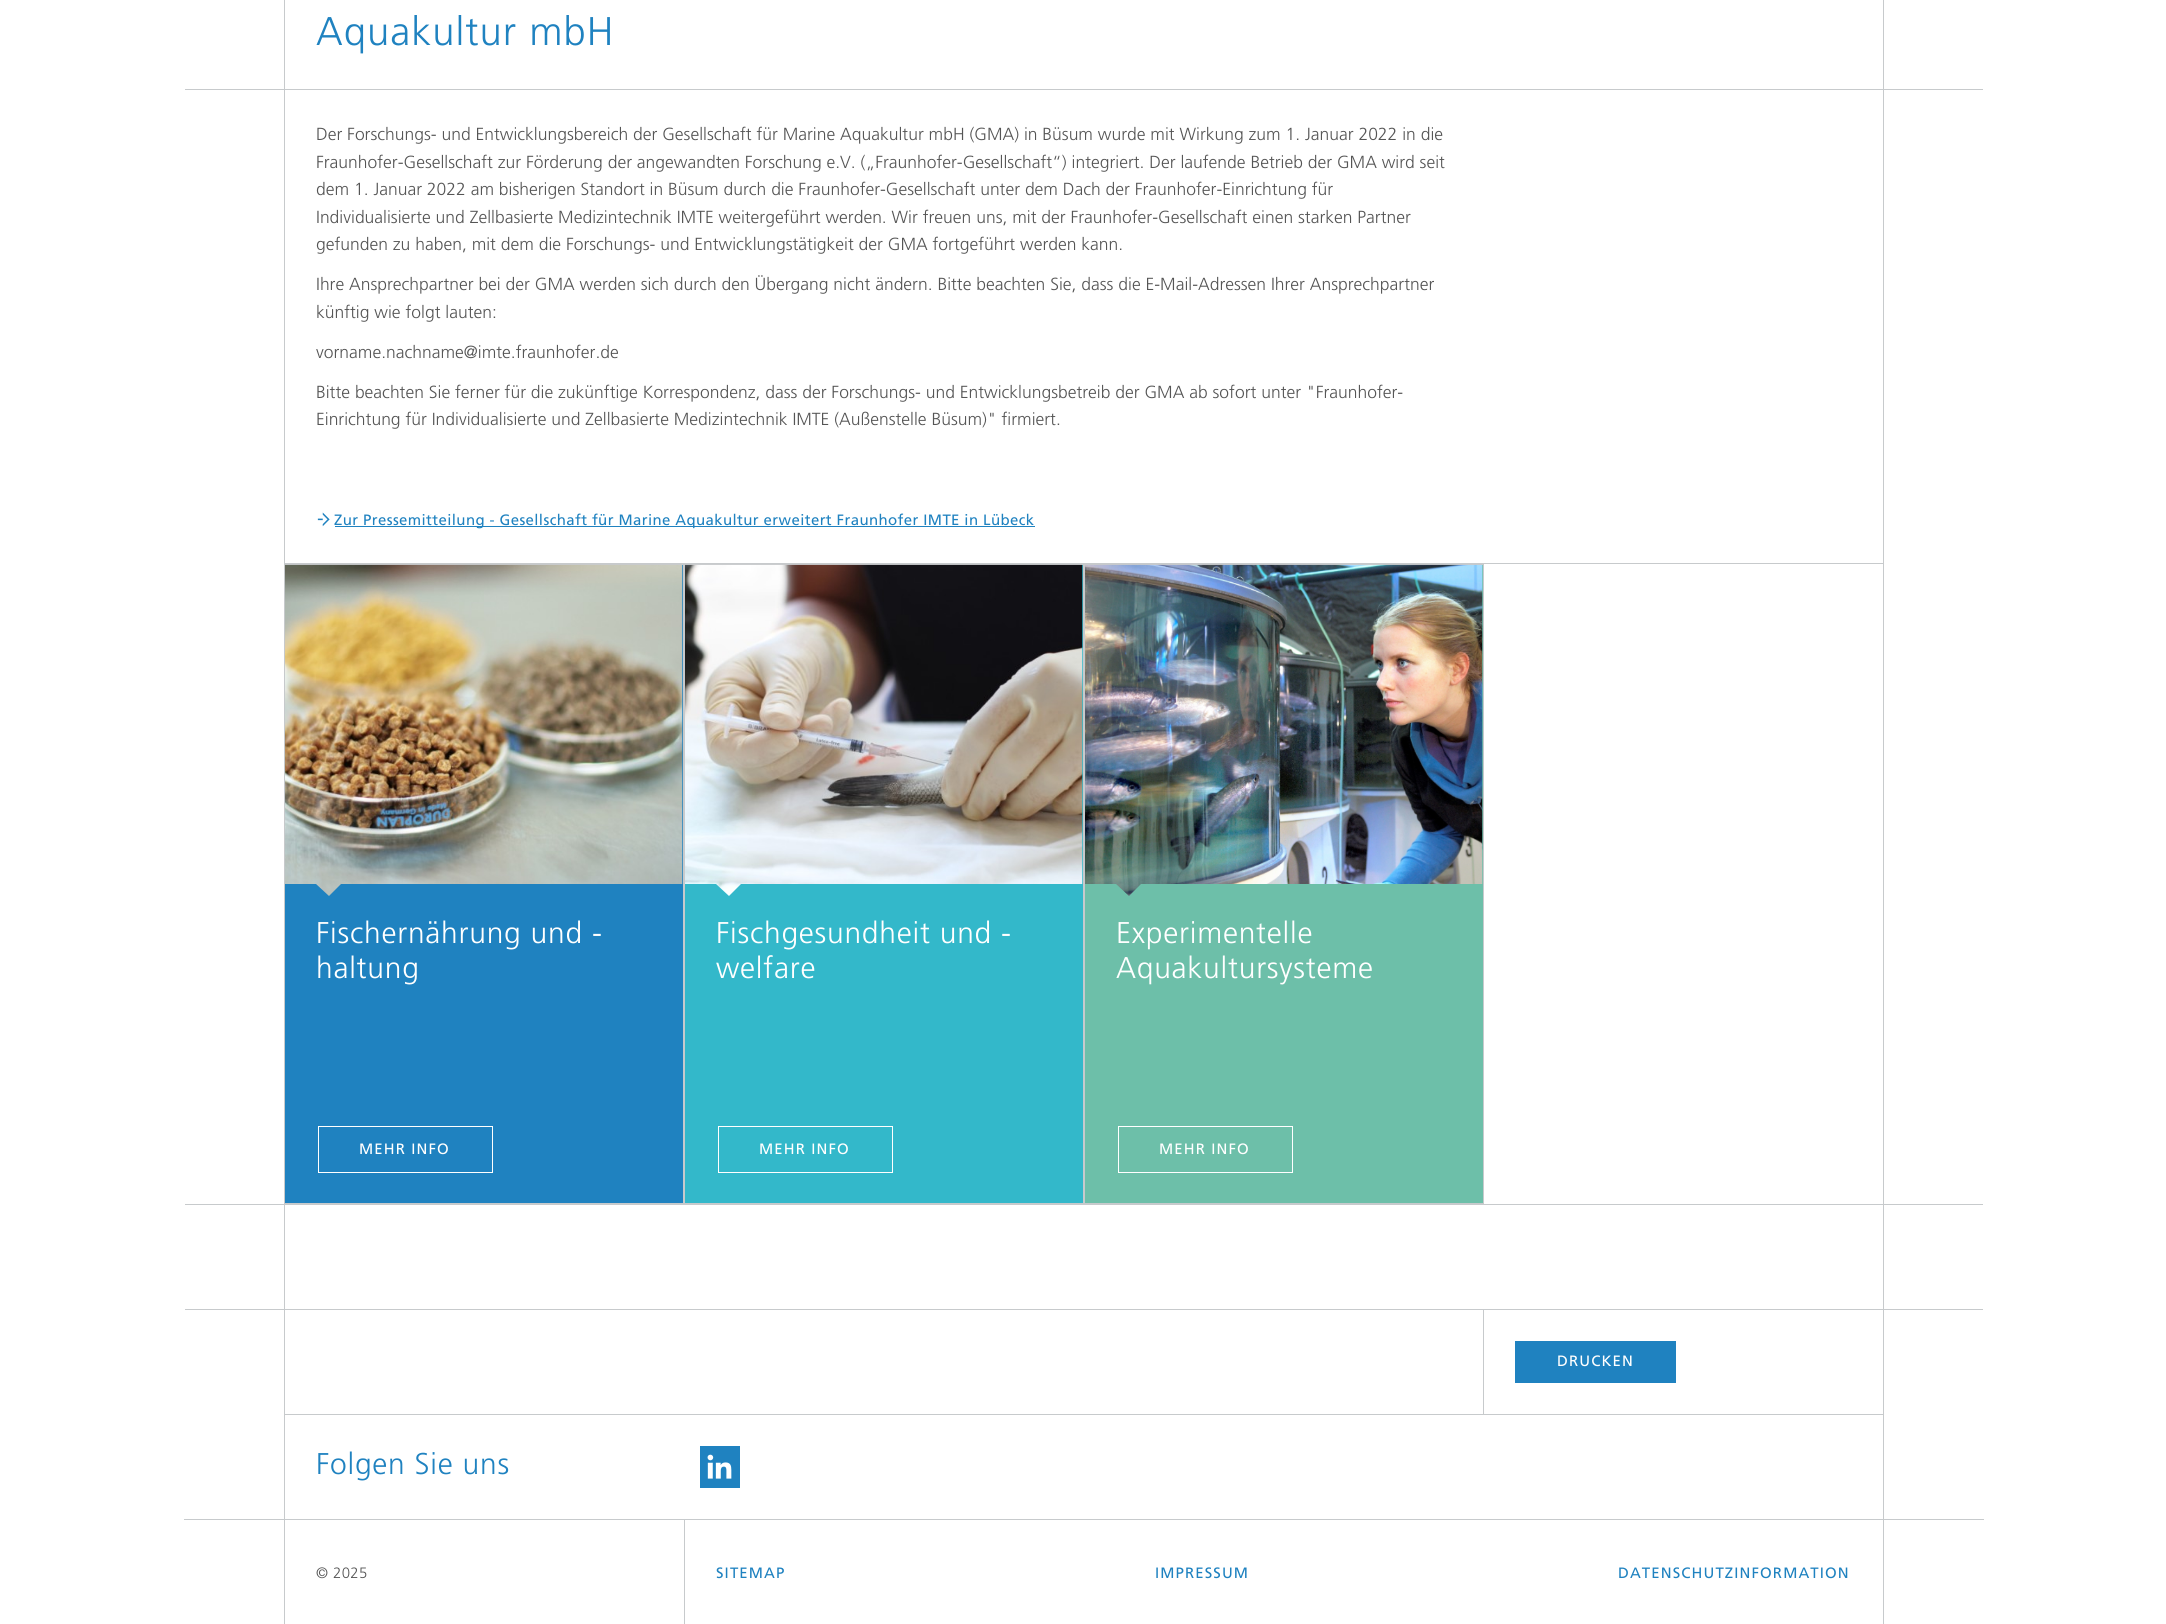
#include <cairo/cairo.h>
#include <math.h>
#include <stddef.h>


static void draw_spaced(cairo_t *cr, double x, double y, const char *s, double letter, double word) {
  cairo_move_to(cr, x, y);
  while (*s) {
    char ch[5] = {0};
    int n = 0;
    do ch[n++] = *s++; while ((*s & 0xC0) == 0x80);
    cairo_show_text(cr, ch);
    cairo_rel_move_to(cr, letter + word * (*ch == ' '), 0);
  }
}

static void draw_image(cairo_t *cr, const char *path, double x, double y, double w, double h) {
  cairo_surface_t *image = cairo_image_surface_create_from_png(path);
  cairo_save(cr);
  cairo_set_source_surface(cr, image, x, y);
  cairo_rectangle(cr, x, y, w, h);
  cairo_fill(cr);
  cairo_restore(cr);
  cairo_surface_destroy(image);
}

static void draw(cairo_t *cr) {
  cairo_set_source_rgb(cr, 1, 1, 1);
  cairo_paint(cr);
  cairo_set_source_rgb(cr, 199 / 255.0, 202 / 255.0, 204 / 255.0);
  cairo_rectangle(cr, 185, 89, 100, 1);
  cairo_fill(cr);
  cairo_rectangle(cr, 284, 89, 1699, 1);
  cairo_fill(cr);
  cairo_rectangle(cr, 1883, 0, 1, 563);
  cairo_fill(cr);
  cairo_rectangle(cr, 284, 0, 1, 563);
  cairo_fill(cr);
  draw_image(cr, "images/1.png", 317, 512, 13, 15);
  cairo_set_source_rgb(cr, 31 / 255.0, 130 / 255.0, 192 / 255.0);
  cairo_rectangle(cr, 335, 526, 700, 1);
  cairo_fill(cr);
  cairo_set_source_rgb(cr, 199 / 255.0, 202 / 255.0, 204 / 255.0);
  cairo_rectangle(cr, 284, 563, 1600, 1);
  cairo_fill(cr);
  cairo_set_source_rgb(cr, 31 / 255.0, 130 / 255.0, 192 / 255.0);
  cairo_rectangle(cr, 284.5, 564.5, 399, 639);
  cairo_fill_preserve(cr);
  cairo_set_source_rgb(cr, 199 / 255.0, 202 / 255.0, 204 / 255.0);
  cairo_set_line_width(cr, 1);
  cairo_stroke(cr);
  draw_image(cr, "images/2.png", 285, 564, 398, 332);
  cairo_set_source_rgb(cr, 31 / 255.0, 130 / 255.0, 192 / 255.0);
  cairo_new_path(cr);
  cairo_move_to(cr, 329, 896);
  cairo_line_to(cr, 285, 896);
  cairo_line_to(cr, 285, 884);
  cairo_line_to(cr, 316, 884);
  cairo_close_path(cr);
  cairo_fill(cr);
  cairo_save(cr);
  cairo_rectangle(cr, 285, 565, 398, 638);
  cairo_clip(cr);
  cairo_new_path(cr);
  cairo_move_to(cr, 726, 896);
  cairo_line_to(cr, 329, 896);
  cairo_line_to(cr, 341, 884);
  cairo_line_to(cr, 726, 884);
  cairo_close_path(cr);
  cairo_fill(cr);
  cairo_restore(cr);
  cairo_rectangle(cr, 318.5, 1126.5, 174, 46);
  cairo_set_source_rgb(cr, 1, 1, 1);
  cairo_stroke(cr);
  cairo_set_source_rgb(cr, 51 / 255.0, 184 / 255.0, 202 / 255.0);
  cairo_rectangle(cr, 684.5, 564.5, 399, 639);
  cairo_fill_preserve(cr);
  cairo_set_source_rgb(cr, 199 / 255.0, 202 / 255.0, 204 / 255.0);
  cairo_stroke(cr);
  draw_image(cr, "images/3.png", 685, 564, 398, 332);
  cairo_set_source_rgb(cr, 51 / 255.0, 184 / 255.0, 202 / 255.0);
  cairo_new_path(cr);
  cairo_move_to(cr, 729, 896);
  cairo_line_to(cr, 685, 896);
  cairo_line_to(cr, 685, 884);
  cairo_line_to(cr, 716, 884);
  cairo_close_path(cr);
  cairo_fill(cr);
  cairo_save(cr);
  cairo_rectangle(cr, 685, 565, 398, 638);
  cairo_clip(cr);
  cairo_new_path(cr);
  cairo_move_to(cr, 1126, 896);
  cairo_line_to(cr, 729, 896);
  cairo_line_to(cr, 741, 884);
  cairo_line_to(cr, 1126, 884);
  cairo_close_path(cr);
  cairo_fill(cr);
  cairo_restore(cr);
  cairo_rectangle(cr, 718.5, 1126.5, 174, 46);
  cairo_set_source_rgb(cr, 1, 1, 1);
  cairo_stroke(cr);
  cairo_set_source_rgb(cr, 109 / 255.0, 191 / 255.0, 169 / 255.0);
  cairo_rectangle(cr, 1084.5, 564.5, 399, 639);
  cairo_fill_preserve(cr);
  cairo_set_source_rgb(cr, 199 / 255.0, 202 / 255.0, 204 / 255.0);
  cairo_stroke(cr);
  draw_image(cr, "images/4.png", 1085, 564, 398, 332);
  cairo_set_source_rgb(cr, 109 / 255.0, 191 / 255.0, 169 / 255.0);
  cairo_new_path(cr);
  cairo_move_to(cr, 1129, 896);
  cairo_line_to(cr, 1085, 896);
  cairo_line_to(cr, 1085, 884);
  cairo_line_to(cr, 1116, 884);
  cairo_close_path(cr);
  cairo_fill(cr);
  cairo_save(cr);
  cairo_rectangle(cr, 1085, 565, 398, 638);
  cairo_clip(cr);
  cairo_new_path(cr);
  cairo_move_to(cr, 1526, 896);
  cairo_line_to(cr, 1129, 896);
  cairo_line_to(cr, 1141, 884);
  cairo_line_to(cr, 1526, 884);
  cairo_close_path(cr);
  cairo_fill(cr);
  cairo_restore(cr);
  cairo_rectangle(cr, 1118.5, 1126.5, 174, 46);
  cairo_set_source_rgb(cr, 1, 1, 1);
  cairo_stroke(cr);
  cairo_set_source_rgb(cr, 199 / 255.0, 202 / 255.0, 204 / 255.0);
  cairo_rectangle(cr, 1883, 564, 1, 640);
  cairo_fill(cr);
  cairo_rectangle(cr, 185, 1204, 100, 1);
  cairo_fill(cr);
  cairo_rectangle(cr, 185, 1309, 100, 1);
  cairo_fill(cr);
  cairo_rectangle(cr, 284, 1204, 1699, 1);
  cairo_fill(cr);
  cairo_rectangle(cr, 284, 1309, 1699, 1);
  cairo_fill(cr);
  cairo_rectangle(cr, 1883, 1204, 1, 210);
  cairo_fill(cr);
  cairo_rectangle(cr, 284, 1204, 1, 210);
  cairo_fill(cr);
  cairo_rectangle(cr, 1483, 1310, 1, 104);
  cairo_fill(cr);
  cairo_set_source_rgb(cr, 31 / 255.0, 130 / 255.0, 192 / 255.0);
  cairo_rectangle(cr, 1515, 1341, 161, 42);
  cairo_fill(cr);
  cairo_set_source_rgb(cr, 199 / 255.0, 202 / 255.0, 204 / 255.0);
  cairo_rectangle(cr, 284, 1414, 1600, 1);
  cairo_fill(cr);
  cairo_rectangle(cr, 1883, 1415, 1, 209);
  cairo_fill(cr);
  cairo_rectangle(cr, 284, 1519, 1600, 1);
  cairo_fill(cr);
  cairo_rectangle(cr, 284, 1415, 1, 105);
  cairo_fill(cr);
  cairo_set_source_rgb(cr, 31 / 255.0, 130 / 255.0, 192 / 255.0);
  cairo_rectangle(cr, 700, 1446, 40, 42);
  cairo_fill(cr);
  draw_image(cr, "images/5.png", 707, 1454, 25, 25);
  cairo_set_source_rgb(cr, 199 / 255.0, 202 / 255.0, 204 / 255.0);
  cairo_rectangle(cr, 184, 1519, 100, 1);
  cairo_fill(cr);
  cairo_rectangle(cr, 1884, 1519, 100, 1);
  cairo_fill(cr);
  cairo_rectangle(cr, 284, 1520, 1, 104);
  cairo_fill(cr);
  cairo_rectangle(cr, 684, 1520, 1, 104);
  cairo_fill(cr);
  cairo_select_font_face(cr, "Frutiger Light", CAIRO_FONT_SLANT_NORMAL, CAIRO_FONT_WEIGHT_NORMAL);
  cairo_set_font_size(cr, 40);
  cairo_set_source_rgb(cr, 31 / 255.0, 130 / 255.0, 192 / 255.0);
  draw_spaced(cr, 316, 45, "Aquakultur mbH", 1, 0);
  cairo_set_font_size(cr, 17.5);
  cairo_set_source_rgb(cr, 85 / 255.0, 85 / 255.0, 85 / 255.0);
  cairo_move_to(cr, 316, 140);
  cairo_show_text(cr, "Der Forschungs- und Entwicklungsbereich der Gesellschaft für Marine Aquakultur mbH (GMA) in Büsum wurde mit Wirkung zum 1. Januar 2022 in die");
  cairo_move_to(cr, 316, 168);
  cairo_show_text(cr, "Fraunhofer-Gesellschaft zur Förderung der angewandten Forschung e.V. („Fraunhofer-Gesellschaft“) integriert. Der laufende Betrieb der GMA wird seit");
  cairo_move_to(cr, 316, 195);
  cairo_show_text(cr, "dem 1. Januar 2022 am bisherigen Standort in Büsum durch die Fraunhofer-Gesellschaft unter dem Dach der Fraunhofer-Einrichtung für");
  cairo_move_to(cr, 316, 223);
  cairo_show_text(cr, "Individualisierte und Zellbasierte Medizintechnik IMTE weitergeführt werden. Wir freuen uns, mit der Fraunhofer-Gesellschaft einen starken Partner");
  cairo_move_to(cr, 316, 250);
  cairo_show_text(cr, "gefunden zu haben, mit dem die Forschungs- und Entwicklungstätigkeit der GMA fortgeführt werden kann.");
  cairo_move_to(cr, 316, 290);
  cairo_show_text(cr, "Ihre Ansprechpartner bei der GMA werden sich durch den Übergang nicht ändern. Bitte beachten Sie, dass die E-Mail-Adressen Ihrer Ansprechpartner");
  cairo_move_to(cr, 316, 318);
  cairo_show_text(cr, "künftig wie folgt lauten:");
  cairo_move_to(cr, 316, 358);
  cairo_show_text(cr, "vorname.nachname@imte.fraunhofer.de");
  cairo_move_to(cr, 316, 398);
  cairo_show_text(cr, "Bitte beachten Sie ferner für die zukünftige Korrespondenz, dass der Forschungs- und Entwicklungsbetreib der GMA ab sofort unter \"Fraunhofer-");
  cairo_move_to(cr, 316, 425);
  cairo_show_text(cr, "Einrichtung für Individualisierte und Zellbasierte Medizintechnik IMTE (Außenstelle Büsum)\" firmiert.");
  cairo_select_font_face(cr, "Frutiger", CAIRO_FONT_SLANT_NORMAL, CAIRO_FONT_WEIGHT_NORMAL);
  cairo_set_font_size(cr, 15);
  cairo_set_source_rgb(cr, 31 / 255.0, 130 / 255.0, 192 / 255.0);
  draw_spaced(cr, 334, 525, "Zur Pressemitteilung - Gesellschaft für Marine Aquakultur erweitert Fraunhofer IMTE in Lübeck", 0.38, 0);
  cairo_select_font_face(cr, "Frutiger Light", CAIRO_FONT_SLANT_NORMAL, CAIRO_FONT_WEIGHT_NORMAL);
  cairo_set_font_size(cr, 30);
  cairo_set_source_rgb(cr, 1, 1, 1);
  draw_spaced(cr, 316, 943, "Fischernährung und -", 0.75, 0);
  draw_spaced(cr, 316, 978, "haltung", 0.75, 0);
  cairo_select_font_face(cr, "Frutiger", CAIRO_FONT_SLANT_NORMAL, CAIRO_FONT_WEIGHT_NORMAL);
  cairo_set_font_size(cr, 15);
  draw_spaced(cr, 359, 1154, "MEHR INFO", 1.1, 0);
  cairo_select_font_face(cr, "Frutiger Light", CAIRO_FONT_SLANT_NORMAL, CAIRO_FONT_WEIGHT_NORMAL);
  cairo_set_font_size(cr, 30);
  draw_spaced(cr, 716, 943, "Fischgesundheit und -", 0.75, 0);
  draw_spaced(cr, 716, 978, "welfare", 0.75, 0);
  cairo_select_font_face(cr, "Frutiger", CAIRO_FONT_SLANT_NORMAL, CAIRO_FONT_WEIGHT_NORMAL);
  cairo_set_font_size(cr, 15);
  draw_spaced(cr, 759, 1154, "MEHR INFO", 1.1, 0);
  cairo_select_font_face(cr, "Frutiger Light", CAIRO_FONT_SLANT_NORMAL, CAIRO_FONT_WEIGHT_NORMAL);
  cairo_set_font_size(cr, 30);
  draw_spaced(cr, 1116, 943, "Experimentelle", 0.75, 0);
  draw_spaced(cr, 1116, 978, "Aquakultursysteme", 0.75, 0);
  cairo_select_font_face(cr, "Frutiger", CAIRO_FONT_SLANT_NORMAL, CAIRO_FONT_WEIGHT_NORMAL);
  cairo_set_font_size(cr, 15);
  draw_spaced(cr, 1159, 1154, "MEHR INFO", 1.1, 0);
  draw_spaced(cr, 1557, 1366, "DRUCKEN", 1.1, 0);
  cairo_select_font_face(cr, "Frutiger Light", CAIRO_FONT_SLANT_NORMAL, CAIRO_FONT_WEIGHT_NORMAL);
  cairo_set_font_size(cr, 30);
  cairo_set_source_rgb(cr, 31 / 255.0, 130 / 255.0, 192 / 255.0);
  draw_spaced(cr, 316, 1474, "Folgen Sie uns", 0.75, 0);
  cairo_set_font_size(cr, 15);
  cairo_set_source_rgb(cr, 85 / 255.0, 85 / 255.0, 85 / 255.0);
  draw_spaced(cr, 316, 1578, "© 2025", 0.38, 0);
  cairo_select_font_face(cr, "Frutiger", CAIRO_FONT_SLANT_NORMAL, CAIRO_FONT_WEIGHT_NORMAL);
  cairo_set_source_rgb(cr, 31 / 255.0, 130 / 255.0, 192 / 255.0);
  draw_spaced(cr, 716, 1578, "SITEMAP", 1.1, 0);
  draw_spaced(cr, 1155, 1578, "IMPRESSUM", 1.1, 0);
  draw_spaced(cr, 1618, 1578, "DATENSCHUTZINFORMATION", 1.1, 0);
}

int main(void) {
  cairo_surface_t *surface = cairo_image_surface_create(CAIRO_FORMAT_RGB24, 2166, 1624);
  cairo_t *cr = cairo_create(surface);
  cairo_font_options_t *options = cairo_font_options_create();
  cairo_font_options_set_hint_metrics(options, CAIRO_HINT_METRICS_OFF);
  cairo_font_options_set_hint_style(options, CAIRO_HINT_STYLE_NONE);
  cairo_set_font_options(cr, options);
  cairo_set_miter_limit(cr, 4);
  draw(cr);
  cairo_surface_write_to_png(surface, "out.png");
  cairo_font_options_destroy(options);
  cairo_destroy(cr);
  cairo_surface_destroy(surface);
  return 0;
}
